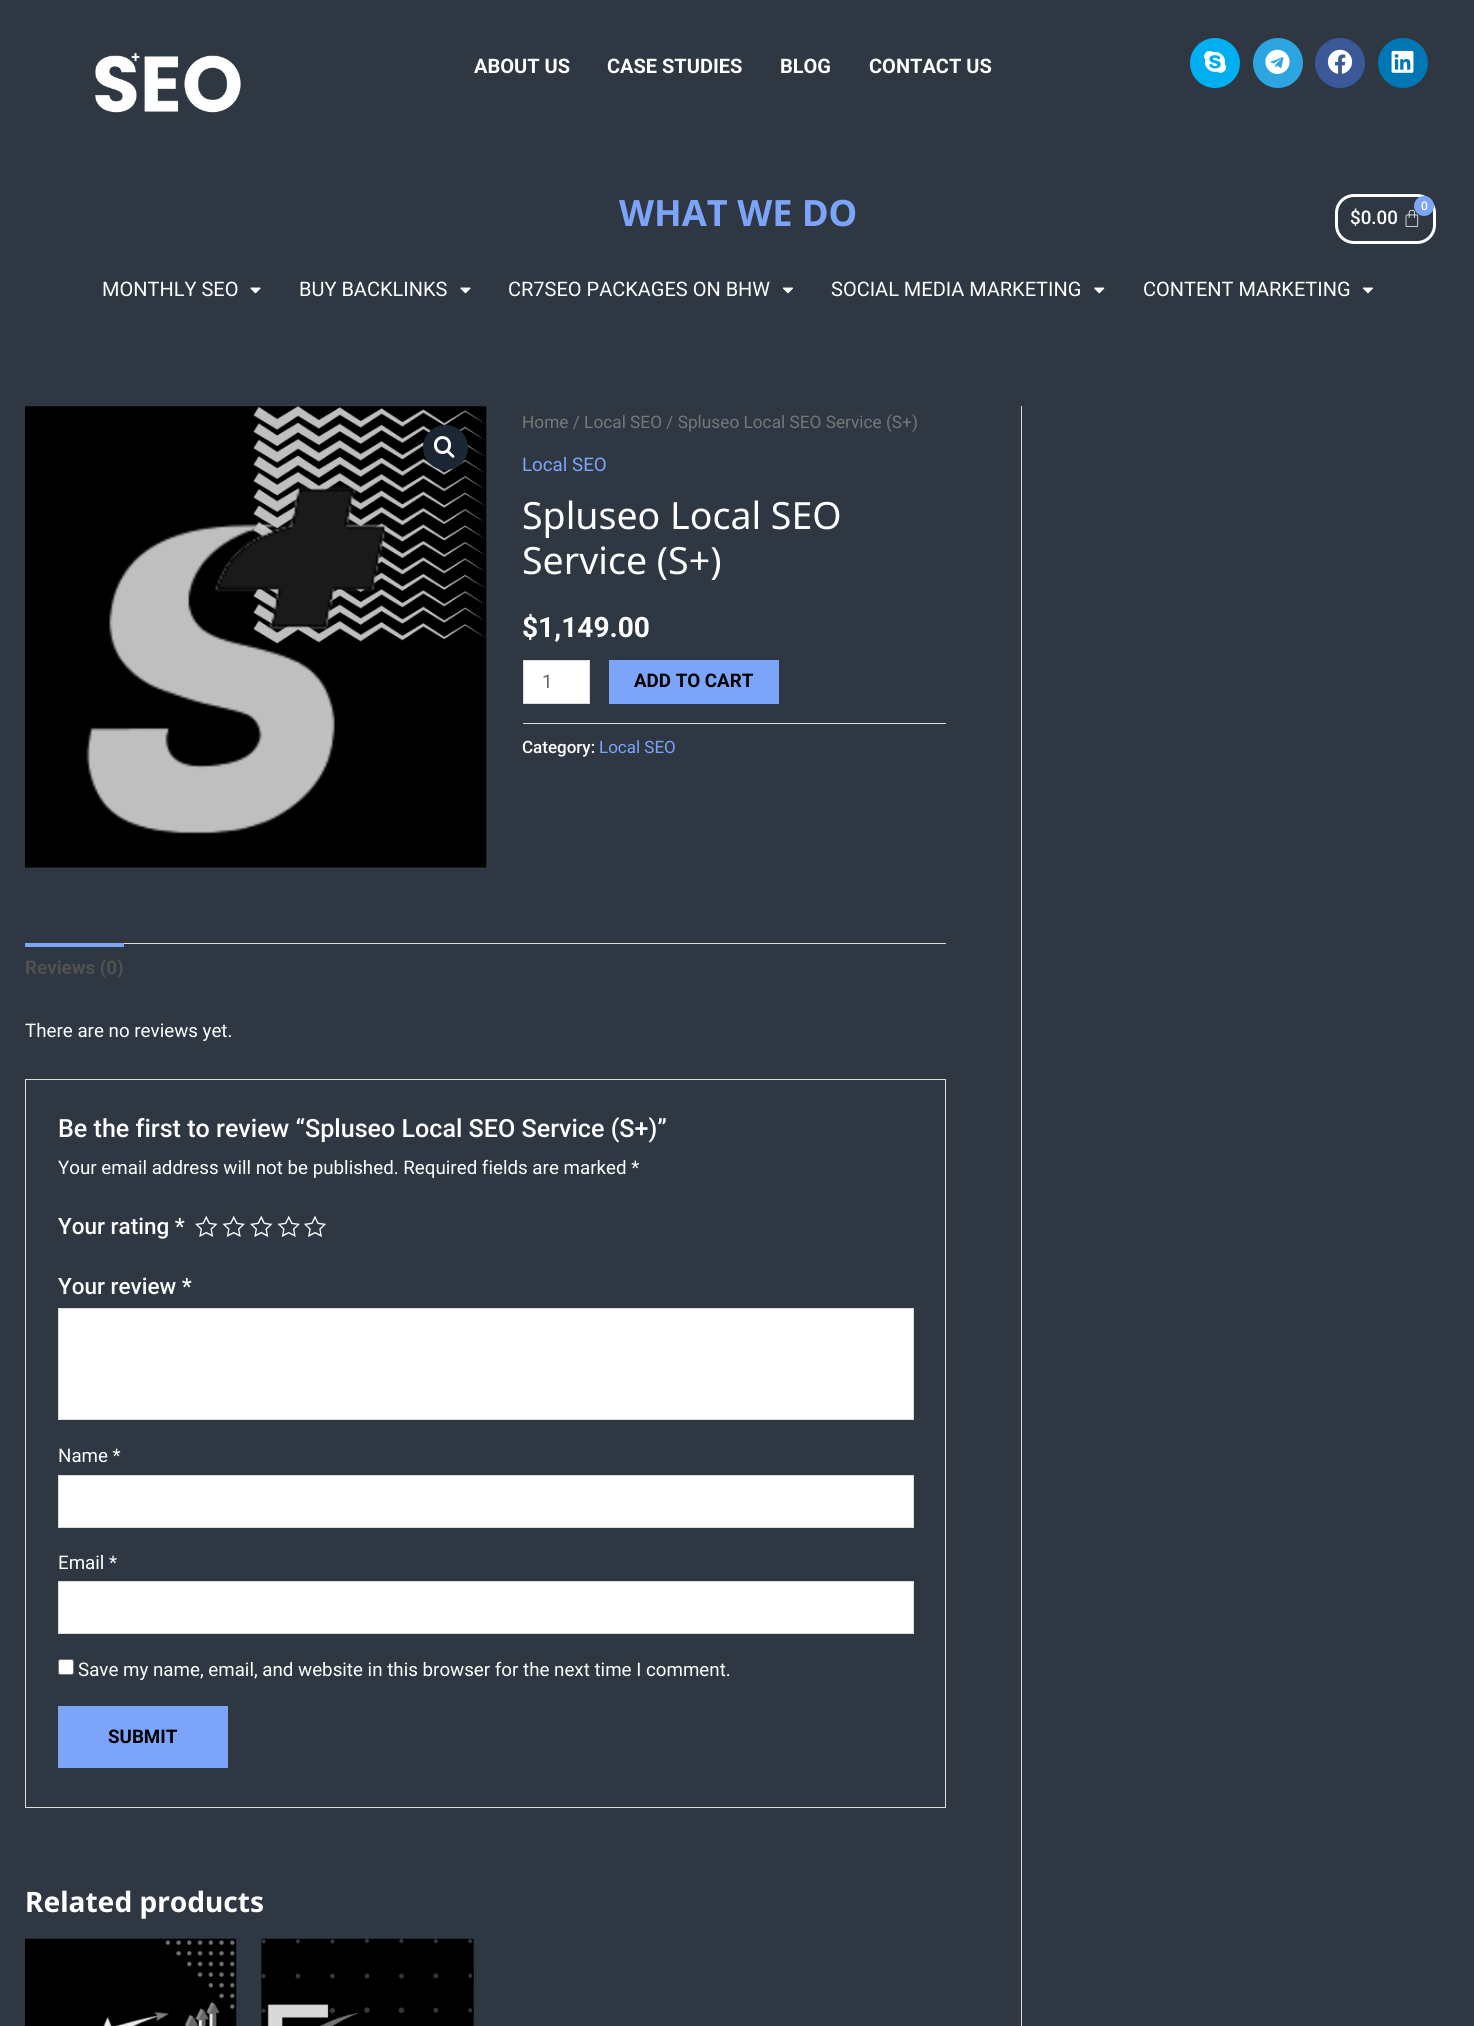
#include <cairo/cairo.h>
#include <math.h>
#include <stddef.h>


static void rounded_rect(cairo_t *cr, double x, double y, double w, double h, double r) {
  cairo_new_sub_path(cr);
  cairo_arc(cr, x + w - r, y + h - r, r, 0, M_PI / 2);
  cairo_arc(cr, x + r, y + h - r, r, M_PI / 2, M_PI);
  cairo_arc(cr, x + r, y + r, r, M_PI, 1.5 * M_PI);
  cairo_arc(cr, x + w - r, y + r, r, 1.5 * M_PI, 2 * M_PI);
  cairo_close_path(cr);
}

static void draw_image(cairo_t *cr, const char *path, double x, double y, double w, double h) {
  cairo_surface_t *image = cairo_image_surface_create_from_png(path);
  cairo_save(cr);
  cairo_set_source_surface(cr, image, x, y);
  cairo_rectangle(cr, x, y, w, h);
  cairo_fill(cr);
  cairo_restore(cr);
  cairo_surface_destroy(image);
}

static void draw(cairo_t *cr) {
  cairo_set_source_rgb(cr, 47 / 255.0, 55 / 255.0, 66 / 255.0);
  cairo_paint(cr);
  draw_image(cr, "images/1.png", 95, 53, 146, 60);
  cairo_set_source_rgb(cr, 0, 175 / 255.0, 240 / 255.0);
  cairo_arc(cr, 1215, 63, 25, 0, 2 * M_PI);
  cairo_fill(cr);
  draw_image(cr, "images/2.png", 1204, 50, 22, 23);
  cairo_set_source_rgb(cr, 44 / 255.0, 165 / 255.0, 224 / 255.0);
  cairo_arc(cr, 1278, 63, 25, 0, 2 * M_PI);
  cairo_fill(cr);
  draw_image(cr, "images/3.png", 1265, 49, 25, 25);
  cairo_set_source_rgb(cr, 59 / 255.0, 89 / 255.0, 152 / 255.0);
  cairo_arc(cr, 1340, 63, 25, 0, 2 * M_PI);
  cairo_fill(cr);
  draw_image(cr, "images/4.png", 1327, 49, 26, 25);
  cairo_set_source_rgb(cr, 0, 119 / 255.0, 181 / 255.0);
  cairo_arc(cr, 1403, 63, 25, 0, 2 * M_PI);
  cairo_fill(cr);
  draw_image(cr, "images/5.png", 1391, 50, 23, 23);
  rounded_rect(cr, 1336.5, 195.5, 98, 47, 17.5);
  cairo_set_source_rgb(cr, 1, 1, 1);
  cairo_set_line_width(cr, 3);
  cairo_stroke(cr);
  draw_image(cr, "images/6.png", 1405, 209, 14, 18);
  cairo_set_source_rgb(cr, 124 / 255.0, 164 / 255.0, 249 / 255.0);
  cairo_arc(cr, 1424, 206, 10, 0, 2 * M_PI);
  cairo_fill(cr);
  draw_image(cr, "images/7.png", 250, 287, 11, 7);
  draw_image(cr, "images/7.png", 460, 287, 11, 7);
  draw_image(cr, "images/8.png", 782, 287, 11, 7);
  draw_image(cr, "images/9.png", 1094, 287, 11, 7);
  draw_image(cr, "images/8.png", 1362, 287, 11, 7);
  cairo_set_source_rgb(cr, 221 / 255.0, 221 / 255.0, 221 / 255.0);
  cairo_rectangle(cr, 1021, 406, 1, 1620);
  cairo_fill(cr);
  draw_image(cr, "images/10.png", 25, 406, 462, 462);
  cairo_set_source_rgb(cr, 28 / 255.0, 39 / 255.0, 53 / 255.0);
  cairo_arc(cr, 445.5, 447.5, 22.5, 0, 2 * M_PI);
  cairo_fill(cr);
  rounded_rect(cr, 435.5, 437.5, 14, 15, 7);
  cairo_set_source_rgb(cr, 1, 1, 1);
  cairo_stroke(cr);
  cairo_new_path(cr);
  cairo_move_to(cr, 447, 450.5);
  cairo_curve_to(cr, 448.5, 449, 450.5, 452.5, 451.5, 453);
  cairo_curve_to(cr, 452.5, 454, 455.5, 456, 454, 457.5);
  cairo_curve_to(cr, 452.5, 459, 450.5, 455.5, 449.5, 455);
  cairo_curve_to(cr, 449, 454, 445.5, 452, 447, 450.5);
  cairo_close_path(cr);
  cairo_fill(cr);
  cairo_rectangle(cr, 523.5, 660.5, 66, 43);
  cairo_fill_preserve(cr);
  cairo_set_source_rgb(cr, 221 / 255.0, 221 / 255.0, 221 / 255.0);
  cairo_set_line_width(cr, 1);
  cairo_stroke(cr);
  cairo_set_source_rgb(cr, 124 / 255.0, 164 / 255.0, 249 / 255.0);
  cairo_rectangle(cr, 609, 660, 170, 44);
  cairo_fill(cr);
  cairo_set_source_rgb(cr, 221 / 255.0, 221 / 255.0, 221 / 255.0);
  cairo_rectangle(cr, 523, 723, 423, 1);
  cairo_fill(cr);
  cairo_rectangle(cr, 124, 943, 822, 1);
  cairo_fill(cr);
  cairo_set_source_rgb(cr, 124 / 255.0, 164 / 255.0, 249 / 255.0);
  cairo_rectangle(cr, 25, 943, 99, 4);
  cairo_fill(cr);
  cairo_rectangle(cr, 25.5, 1079.5, 920, 728);
  cairo_set_source_rgb(cr, 221 / 255.0, 221 / 255.0, 221 / 255.0);
  cairo_stroke(cr);
  draw_image(cr, "images/11.png", 195, 1215, 23, 22);
  draw_image(cr, "images/12.png", 222, 1215, 23, 22);
  draw_image(cr, "images/11.png", 250, 1215, 23, 22);
  draw_image(cr, "images/12.png", 277, 1215, 23, 22);
  draw_image(cr, "images/13.png", 303, 1215, 24, 22);
  cairo_set_source_rgb(cr, 1, 1, 1);
  cairo_rectangle(cr, 58.5, 1308.5, 855, 111);
  cairo_fill_preserve(cr);
  cairo_set_source_rgb(cr, 221 / 255.0, 221 / 255.0, 221 / 255.0);
  cairo_stroke(cr);
  cairo_set_source_rgb(cr, 1, 1, 1);
  cairo_rectangle(cr, 58.5, 1475.5, 855, 52);
  cairo_fill_preserve(cr);
  cairo_set_source_rgb(cr, 221 / 255.0, 221 / 255.0, 221 / 255.0);
  cairo_stroke(cr);
  cairo_set_source_rgb(cr, 1, 1, 1);
  cairo_rectangle(cr, 58.5, 1581.5, 855, 52);
  cairo_fill_preserve(cr);
  cairo_set_source_rgb(cr, 221 / 255.0, 221 / 255.0, 221 / 255.0);
  cairo_stroke(cr);
  cairo_set_source_rgb(cr, 1, 1, 1);
  rounded_rect(cr, 58.5, 1659.5, 15, 15, 2);
  cairo_fill_preserve(cr);
  cairo_set_source_rgb(cr, 118 / 255.0, 118 / 255.0, 118 / 255.0);
  cairo_stroke(cr);
  cairo_set_source_rgb(cr, 124 / 255.0, 164 / 255.0, 249 / 255.0);
  cairo_rectangle(cr, 58, 1706, 170, 62);
  cairo_fill(cr);
  draw_image(cr, "images/14.png", 25, 1938, 212, 88);
  draw_image(cr, "images/15.png", 261, 1938, 213, 88);
  cairo_select_font_face(cr, "Roboto", CAIRO_FONT_SLANT_NORMAL, CAIRO_FONT_WEIGHT_BOLD);
  cairo_set_font_size(cr, 20);
  cairo_set_source_rgb(cr, 1, 1, 1);
  cairo_move_to(cr, 474, 73);
  cairo_show_text(cr, "ABOUT US");
  cairo_move_to(cr, 607, 73);
  cairo_show_text(cr, "CASE STUDIES");
  cairo_move_to(cr, 780, 73);
  cairo_show_text(cr, "BLOG");
  cairo_move_to(cr, 869, 73);
  cairo_show_text(cr, "CONTACT US");
  cairo_select_font_face(cr, "Noto Sans", CAIRO_FONT_SLANT_NORMAL, CAIRO_FONT_WEIGHT_BOLD);
  cairo_set_font_size(cr, 36.25);
  cairo_set_source_rgb(cr, 124 / 255.0, 164 / 255.0, 249 / 255.0);
  cairo_move_to(cr, 619, 226);
  cairo_show_text(cr, "WHAT WE DO");
  cairo_select_font_face(cr, "Roboto Medium", CAIRO_FONT_SLANT_NORMAL, CAIRO_FONT_WEIGHT_NORMAL);
  cairo_set_font_size(cr, 12);
  cairo_set_source_rgb(cr, 1, 1, 1);
  cairo_move_to(cr, 1421, 210);
  cairo_show_text(cr, "0");
  cairo_set_font_size(cr, 18.75);
  cairo_move_to(cr, 1350, 224);
  cairo_show_text(cr, "$0.00");
  cairo_select_font_face(cr, "Roboto", CAIRO_FONT_SLANT_NORMAL, CAIRO_FONT_WEIGHT_NORMAL);
  cairo_set_font_size(cr, 20);
  cairo_move_to(cr, 102, 296);
  cairo_show_text(cr, "MONTHLY SEO");
  cairo_move_to(cr, 299, 296);
  cairo_show_text(cr, "BUY BACKLINKS");
  cairo_move_to(cr, 508, 296);
  cairo_show_text(cr, "CR7SEO PACKAGES ON BHW");
  cairo_move_to(cr, 831, 296);
  cairo_show_text(cr, "SOCIAL MEDIA MARKETING");
  cairo_move_to(cr, 1143, 296);
  cairo_show_text(cr, "CONTENT MARKETING");
  cairo_set_font_size(cr, 17.25);
  cairo_set_source_rgb(cr, 119 / 255.0, 119 / 255.0, 119 / 255.0);
  cairo_move_to(cr, 522, 428);
  cairo_show_text(cr, "Home / Local SEO / Spluseo Local SEO Service (S+)");
  cairo_set_font_size(cr, 18.75);
  cairo_set_source_rgb(cr, 124 / 255.0, 164 / 255.0, 249 / 255.0);
  cairo_move_to(cr, 522, 471);
  cairo_show_text(cr, "Local SEO");
  cairo_select_font_face(cr, "Noto Sans", CAIRO_FONT_SLANT_NORMAL, CAIRO_FONT_WEIGHT_NORMAL);
  cairo_set_font_size(cr, 37.5);
  cairo_set_source_rgb(cr, 1, 1, 1);
  cairo_move_to(cr, 522, 529);
  cairo_show_text(cr, "Spluseo Local SEO");
  cairo_move_to(cr, 522, 574);
  cairo_show_text(cr, "Service (S+)");
  cairo_select_font_face(cr, "Roboto", CAIRO_FONT_SLANT_NORMAL, CAIRO_FONT_WEIGHT_BOLD);
  cairo_set_font_size(cr, 28.1);
  cairo_move_to(cr, 522, 637);
  cairo_show_text(cr, "$1,149.00");
  cairo_select_font_face(cr, "Roboto", CAIRO_FONT_SLANT_NORMAL, CAIRO_FONT_WEIGHT_NORMAL);
  cairo_set_font_size(cr, 18.75);
  cairo_set_source_rgb(cr, 102 / 255.0, 102 / 255.0, 102 / 255.0);
  cairo_move_to(cr, 542, 688);
  cairo_show_text(cr, "1");
  cairo_select_font_face(cr, "Roboto", CAIRO_FONT_SLANT_NORMAL, CAIRO_FONT_WEIGHT_BOLD);
  cairo_set_source_rgb(cr, 0, 0, 0);
  cairo_move_to(cr, 634, 687);
  cairo_show_text(cr, "ADD TO CART");
  cairo_select_font_face(cr, "Roboto Medium", CAIRO_FONT_SLANT_NORMAL, CAIRO_FONT_WEIGHT_NORMAL);
  cairo_set_font_size(cr, 17);
  cairo_set_source_rgb(cr, 1, 1, 1);
  cairo_move_to(cr, 522, 753);
  cairo_show_text(cr, "Category:");
  cairo_select_font_face(cr, "Roboto", CAIRO_FONT_SLANT_NORMAL, CAIRO_FONT_WEIGHT_NORMAL);
  cairo_set_source_rgb(cr, 124 / 255.0, 164 / 255.0, 249 / 255.0);
  cairo_move_to(cr, 599, 753);
  cairo_show_text(cr, "Local SEO");
  cairo_select_font_face(cr, "Roboto", CAIRO_FONT_SLANT_NORMAL, CAIRO_FONT_WEIGHT_BOLD);
  cairo_set_font_size(cr, 18.75);
  cairo_set_source_rgb(cr, 81 / 255.0, 81 / 255.0, 81 / 255.0);
  cairo_move_to(cr, 25, 974);
  cairo_show_text(cr, "Reviews (0)");
  cairo_select_font_face(cr, "Roboto", CAIRO_FONT_SLANT_NORMAL, CAIRO_FONT_WEIGHT_NORMAL);
  cairo_set_source_rgb(cr, 1, 1, 1);
  cairo_move_to(cr, 25, 1037);
  cairo_show_text(cr, "There are no reviews yet.");
  cairo_select_font_face(cr, "Roboto Medium", CAIRO_FONT_SLANT_NORMAL, CAIRO_FONT_WEIGHT_NORMAL);
  cairo_set_font_size(cr, 25.1);
  cairo_move_to(cr, 58, 1137);
  cairo_show_text(cr, "Be the first to review “Spluseo Local SEO Service (S+)”");
  cairo_select_font_face(cr, "Roboto", CAIRO_FONT_SLANT_NORMAL, CAIRO_FONT_WEIGHT_NORMAL);
  cairo_set_font_size(cr, 18.75);
  cairo_move_to(cr, 58, 1174);
  cairo_show_text(cr, "Your email address will not be published. Required fields are marked *");
  cairo_select_font_face(cr, "Roboto Medium", CAIRO_FONT_SLANT_NORMAL, CAIRO_FONT_WEIGHT_NORMAL);
  cairo_set_font_size(cr, 22.5);
  cairo_move_to(cr, 58, 1234);
  cairo_show_text(cr, "Your rating *");
  cairo_move_to(cr, 58, 1294);
  cairo_show_text(cr, "Your review *");
  cairo_select_font_face(cr, "Roboto", CAIRO_FONT_SLANT_NORMAL, CAIRO_FONT_WEIGHT_NORMAL);
  cairo_set_font_size(cr, 18.75);
  cairo_move_to(cr, 58, 1462);
  cairo_show_text(cr, "Name *");
  cairo_move_to(cr, 58, 1569);
  cairo_show_text(cr, "Email *");
  cairo_move_to(cr, 78, 1676);
  cairo_show_text(cr, "Save my name, email, and website in this browser for the next time I comment.");
  cairo_select_font_face(cr, "Roboto", CAIRO_FONT_SLANT_NORMAL, CAIRO_FONT_WEIGHT_BOLD);
  cairo_set_source_rgb(cr, 0, 0, 0);
  cairo_move_to(cr, 108, 1743);
  cairo_show_text(cr, "SUBMIT");
  cairo_select_font_face(cr, "Noto Sans", CAIRO_FONT_SLANT_NORMAL, CAIRO_FONT_WEIGHT_BOLD);
  cairo_set_font_size(cr, 28.1);
  cairo_set_source_rgb(cr, 1, 1, 1);
  cairo_move_to(cr, 25, 1912);
  cairo_show_text(cr, "Related products");
}

int main(void) {
  cairo_surface_t *surface = cairo_image_surface_create(CAIRO_FORMAT_RGB24, 1474, 2026);
  cairo_t *cr = cairo_create(surface);
  cairo_font_options_t *options = cairo_font_options_create();
  cairo_font_options_set_hint_metrics(options, CAIRO_HINT_METRICS_OFF);
  cairo_font_options_set_hint_style(options, CAIRO_HINT_STYLE_NONE);
  cairo_set_font_options(cr, options);
  cairo_set_miter_limit(cr, 4);
  draw(cr);
  cairo_surface_write_to_png(surface, "out.png");
  cairo_font_options_destroy(options);
  cairo_destroy(cr);
  cairo_surface_destroy(surface);
  return 0;
}
